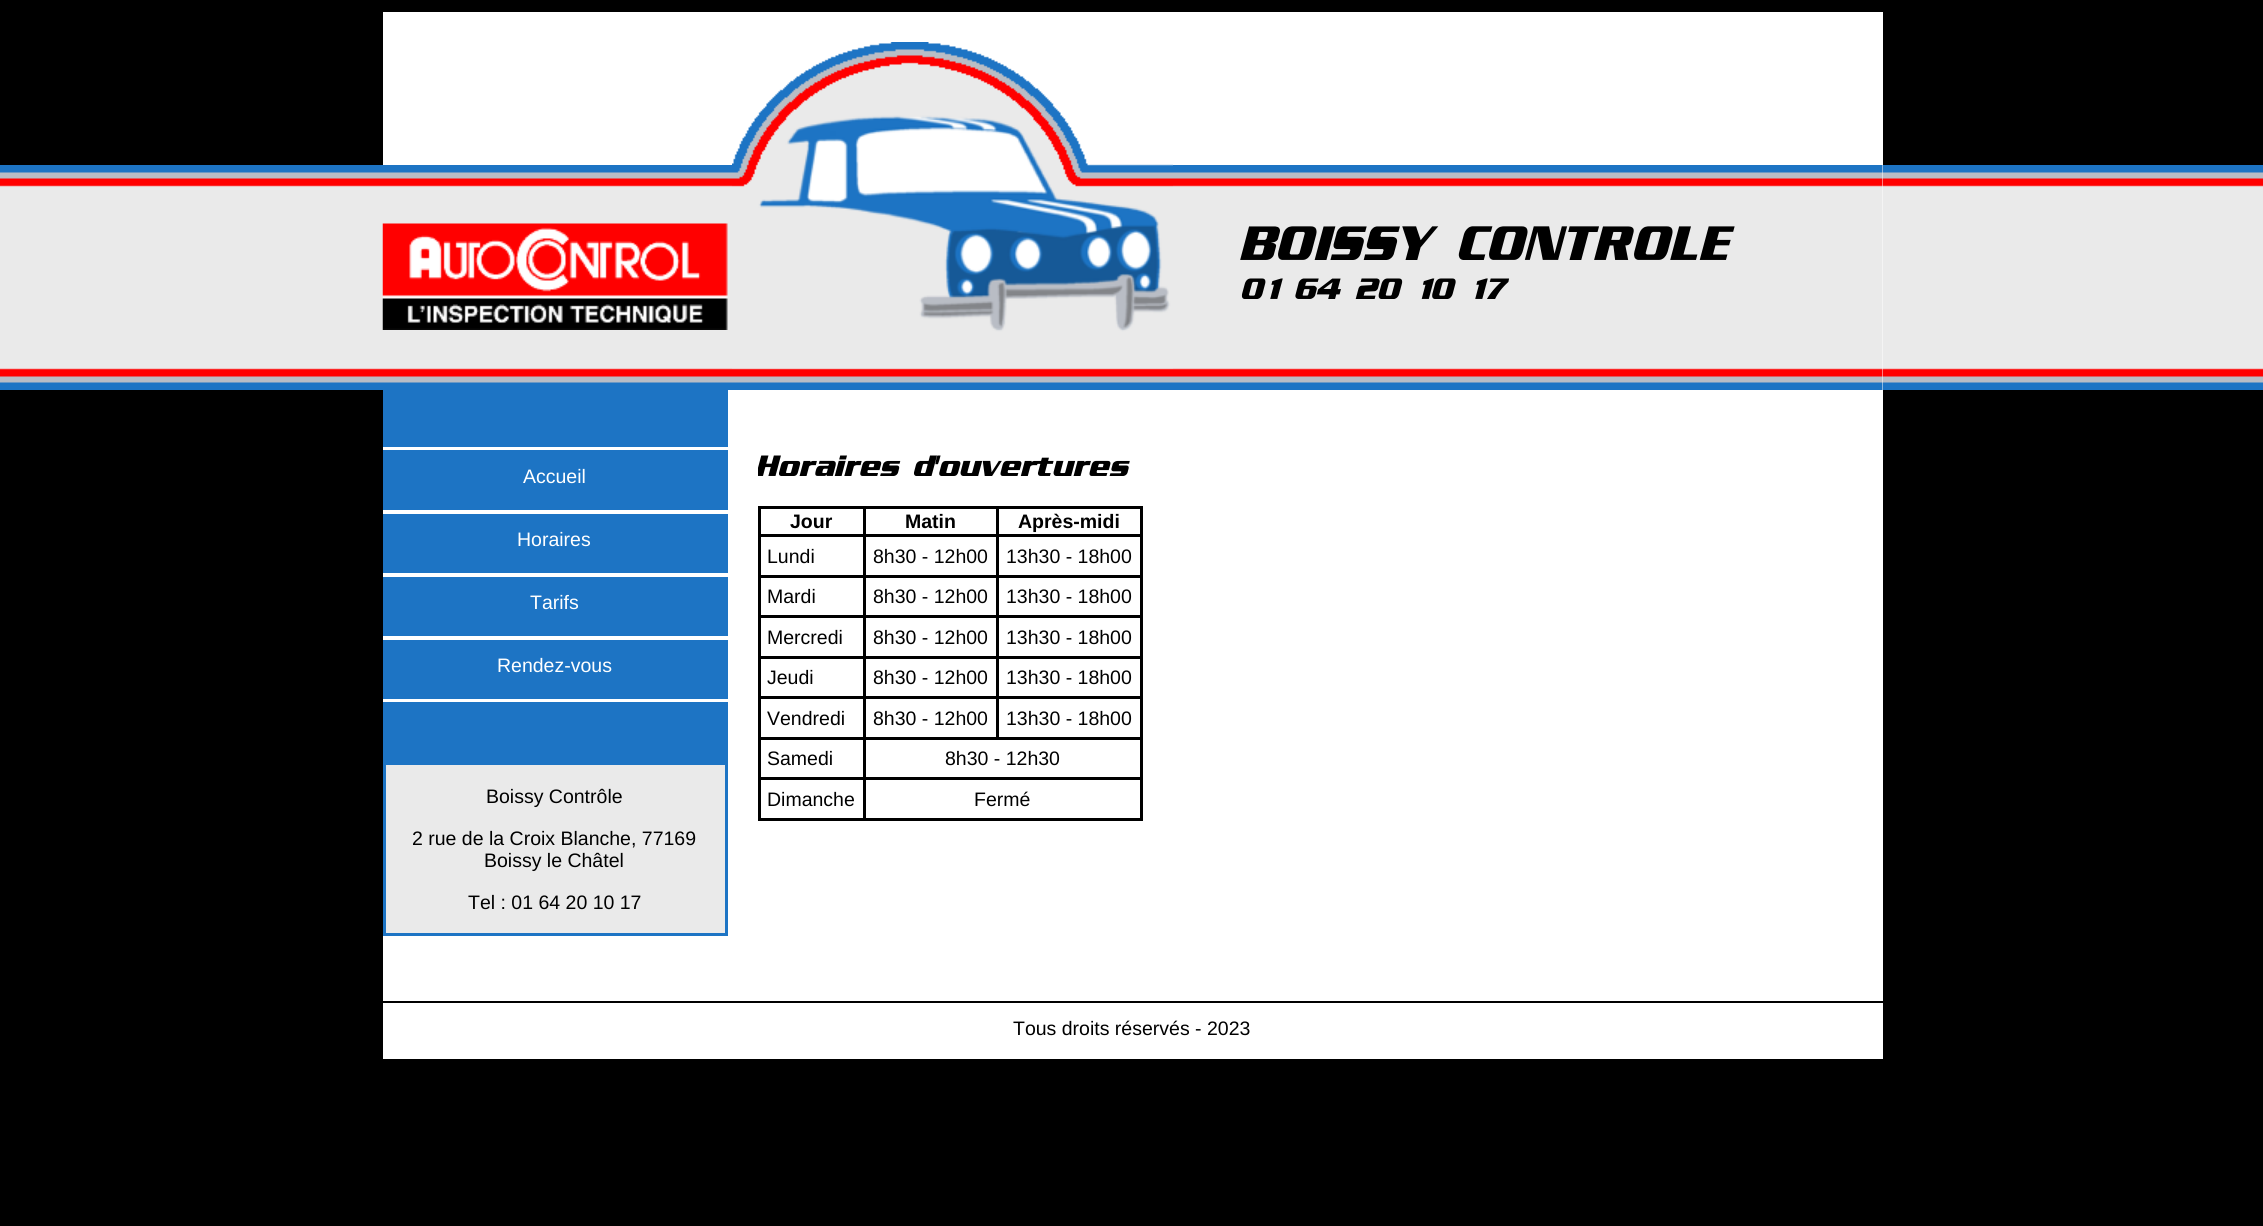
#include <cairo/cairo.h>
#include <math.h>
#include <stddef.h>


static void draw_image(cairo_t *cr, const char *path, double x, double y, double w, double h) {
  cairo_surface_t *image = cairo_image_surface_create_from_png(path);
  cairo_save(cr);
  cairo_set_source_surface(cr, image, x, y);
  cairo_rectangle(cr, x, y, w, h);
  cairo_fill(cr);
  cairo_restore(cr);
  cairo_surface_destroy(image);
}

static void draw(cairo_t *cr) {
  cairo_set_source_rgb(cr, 0, 0, 0);
  cairo_paint(cr);
  draw_image(cr, "images/1.png", 0, 165, 2263, 225);
  cairo_set_source_rgb(cr, 1, 1, 1);
  cairo_rectangle(cr, 383, 12, 1500, 1047);
  cairo_fill(cr);
  draw_image(cr, "images/2.png", 383, 165, 1500, 225);
  draw_image(cr, "images/3.png", 382, 223, 346, 107);
  draw_image(cr, "images/4.png", 732, 42, 441, 327);
  cairo_set_source_rgb(cr, 29 / 255.0, 116 / 255.0, 196 / 255.0);
  cairo_rectangle(cr, 383, 390, 345, 372);
  cairo_fill(cr);
  cairo_set_source_rgb(cr, 1, 1, 1);
  cairo_rectangle(cr, 383, 447, 345, 3);
  cairo_fill(cr);
  cairo_rectangle(cr, 383, 510, 345, 4);
  cairo_fill(cr);
  cairo_rectangle(cr, 383, 573, 345, 4);
  cairo_fill(cr);
  cairo_rectangle(cr, 383, 636, 345, 4);
  cairo_fill(cr);
  cairo_rectangle(cr, 383, 699, 345, 3);
  cairo_fill(cr);
  cairo_set_source_rgb(cr, 234 / 255.0, 234 / 255.0, 234 / 255.0);
  cairo_rectangle(cr, 384.5, 763.5, 342, 171);
  cairo_fill_preserve(cr);
  cairo_set_source_rgb(cr, 29 / 255.0, 116 / 255.0, 196 / 255.0);
  cairo_set_line_width(cr, 3);
  cairo_stroke(cr);
  cairo_set_source_rgb(cr, 0, 0, 0);
  cairo_rectangle(cr, 758, 506, 385, 3);
  cairo_fill(cr);
  cairo_rectangle(cr, 758, 534, 385, 3);
  cairo_fill(cr);
  cairo_rectangle(cr, 758, 575, 385, 3);
  cairo_fill(cr);
  cairo_rectangle(cr, 758, 615, 385, 3);
  cairo_fill(cr);
  cairo_rectangle(cr, 758, 656, 385, 3);
  cairo_fill(cr);
  cairo_rectangle(cr, 758, 696, 385, 3);
  cairo_fill(cr);
  cairo_rectangle(cr, 758, 737, 385, 3);
  cairo_fill(cr);
  cairo_rectangle(cr, 758, 777, 385, 3);
  cairo_fill(cr);
  cairo_rectangle(cr, 1140, 777, 3, 44);
  cairo_fill(cr);
  cairo_rectangle(cr, 1140, 737, 3, 43);
  cairo_fill(cr);
  cairo_rectangle(cr, 1140, 696, 3, 44);
  cairo_fill(cr);
  cairo_rectangle(cr, 1140, 656, 3, 43);
  cairo_fill(cr);
  cairo_rectangle(cr, 1140, 615, 3, 44);
  cairo_fill(cr);
  cairo_rectangle(cr, 1140, 575, 3, 43);
  cairo_fill(cr);
  cairo_rectangle(cr, 1140, 534, 3, 44);
  cairo_fill(cr);
  cairo_rectangle(cr, 1140, 506, 3, 31);
  cairo_fill(cr);
  cairo_rectangle(cr, 758, 818, 385, 3);
  cairo_fill(cr);
  cairo_rectangle(cr, 758, 777, 3, 44);
  cairo_fill(cr);
  cairo_rectangle(cr, 758, 737, 3, 43);
  cairo_fill(cr);
  cairo_rectangle(cr, 758, 696, 3, 44);
  cairo_fill(cr);
  cairo_rectangle(cr, 758, 656, 3, 43);
  cairo_fill(cr);
  cairo_rectangle(cr, 758, 615, 3, 44);
  cairo_fill(cr);
  cairo_rectangle(cr, 758, 575, 3, 43);
  cairo_fill(cr);
  cairo_rectangle(cr, 758, 534, 3, 44);
  cairo_fill(cr);
  cairo_rectangle(cr, 758, 506, 3, 31);
  cairo_fill(cr);
  cairo_rectangle(cr, 996, 506, 3, 234);
  cairo_fill(cr);
  cairo_rectangle(cr, 863, 506, 3, 315);
  cairo_fill(cr);
  cairo_rectangle(cr, 383, 1001, 1500, 2);
  cairo_fill(cr);
  cairo_select_font_face(cr, "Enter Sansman", CAIRO_FONT_SLANT_ITALIC, CAIRO_FONT_WEIGHT_BOLD);
  cairo_set_font_size(cr, 48);
  cairo_move_to(cr, 1242, 260);
  cairo_show_text(cr, "BOISSY CONTROLE");
  cairo_set_font_size(cr, 29.25);
  cairo_move_to(cr, 1242, 299);
  cairo_show_text(cr, "01 64 20 10 17");
  cairo_select_font_face(cr, "Liberation Sans", CAIRO_FONT_SLANT_NORMAL, CAIRO_FONT_WEIGHT_NORMAL);
  cairo_set_font_size(cr, 19.5);
  cairo_set_source_rgb(cr, 1, 1, 1);
  cairo_move_to(cr, 523, 483);
  cairo_show_text(cr, "Accueil");
  cairo_move_to(cr, 517, 546);
  cairo_show_text(cr, "Horaires");
  cairo_move_to(cr, 530, 609);
  cairo_show_text(cr, "Tarifs");
  cairo_move_to(cr, 497, 672);
  cairo_show_text(cr, "Rendez-vous");
  cairo_set_source_rgb(cr, 0, 0, 0);
  cairo_move_to(cr, 486, 803);
  cairo_show_text(cr, "Boissy Contrôle");
  cairo_move_to(cr, 412, 845);
  cairo_show_text(cr, "2 rue de la Croix Blanche, 77169");
  cairo_move_to(cr, 484, 867);
  cairo_show_text(cr, "Boissy le Châtel");
  cairo_move_to(cr, 468, 909);
  cairo_show_text(cr, "Tel : 01 64 20 10 17");
  cairo_save(cr);
  cairo_rectangle(cr, 758, 449, 1125, 372);
  cairo_clip(cr);
  cairo_select_font_face(cr, "Enter Sansman", CAIRO_FONT_SLANT_ITALIC, CAIRO_FONT_WEIGHT_BOLD);
  cairo_set_font_size(cr, 29.25);
  cairo_move_to(cr, 757, 476);
  cairo_show_text(cr, "Horaires d'ouvertures");
  cairo_restore(cr);
  cairo_select_font_face(cr, "Liberation Sans", CAIRO_FONT_SLANT_NORMAL, CAIRO_FONT_WEIGHT_BOLD);
  cairo_move_to(cr, 790, 528);
  cairo_show_text(cr, "Jour");
  cairo_move_to(cr, 905, 528);
  cairo_show_text(cr, "Matin");
  cairo_move_to(cr, 1018, 528);
  cairo_show_text(cr, "Après-midi");
  cairo_select_font_face(cr, "Liberation Sans", CAIRO_FONT_SLANT_NORMAL, CAIRO_FONT_WEIGHT_NORMAL);
  cairo_move_to(cr, 767, 563);
  cairo_show_text(cr, "Lundi");
  cairo_move_to(cr, 873, 563);
  cairo_show_text(cr, "8h30 - 12h00");
  cairo_move_to(cr, 1006, 563);
  cairo_show_text(cr, "13h30 - 18h00");
  cairo_move_to(cr, 767, 603);
  cairo_show_text(cr, "Mardi");
  cairo_move_to(cr, 873, 603);
  cairo_show_text(cr, "8h30 - 12h00");
  cairo_move_to(cr, 1006, 603);
  cairo_show_text(cr, "13h30 - 18h00");
  cairo_move_to(cr, 767, 644);
  cairo_show_text(cr, "Mercredi");
  cairo_move_to(cr, 873, 644);
  cairo_show_text(cr, "8h30 - 12h00");
  cairo_move_to(cr, 1006, 644);
  cairo_show_text(cr, "13h30 - 18h00");
  cairo_move_to(cr, 767, 684);
  cairo_show_text(cr, "Jeudi");
  cairo_move_to(cr, 873, 684);
  cairo_show_text(cr, "8h30 - 12h00");
  cairo_move_to(cr, 1006, 684);
  cairo_show_text(cr, "13h30 - 18h00");
  cairo_move_to(cr, 767, 725);
  cairo_show_text(cr, "Vendredi");
  cairo_move_to(cr, 873, 725);
  cairo_show_text(cr, "8h30 - 12h00");
  cairo_move_to(cr, 1006, 725);
  cairo_show_text(cr, "13h30 - 18h00");
  cairo_move_to(cr, 767, 765);
  cairo_show_text(cr, "Samedi");
  cairo_move_to(cr, 945, 765);
  cairo_show_text(cr, "8h30 - 12h30");
  cairo_move_to(cr, 767, 806);
  cairo_show_text(cr, "Dimanche");
  cairo_move_to(cr, 974, 806);
  cairo_show_text(cr, "Fermé");
  cairo_move_to(cr, 1013, 1035);
  cairo_show_text(cr, "Tous droits réservés - 2023");
}

int main(void) {
  cairo_surface_t *surface = cairo_image_surface_create(CAIRO_FORMAT_RGB24, 2263, 1226);
  cairo_t *cr = cairo_create(surface);
  cairo_font_options_t *options = cairo_font_options_create();
  cairo_font_options_set_hint_metrics(options, CAIRO_HINT_METRICS_OFF);
  cairo_font_options_set_hint_style(options, CAIRO_HINT_STYLE_NONE);
  cairo_set_font_options(cr, options);
  cairo_set_miter_limit(cr, 4);
  draw(cr);
  cairo_surface_write_to_png(surface, "out.png");
  cairo_font_options_destroy(options);
  cairo_destroy(cr);
  cairo_surface_destroy(surface);
  return 0;
}
